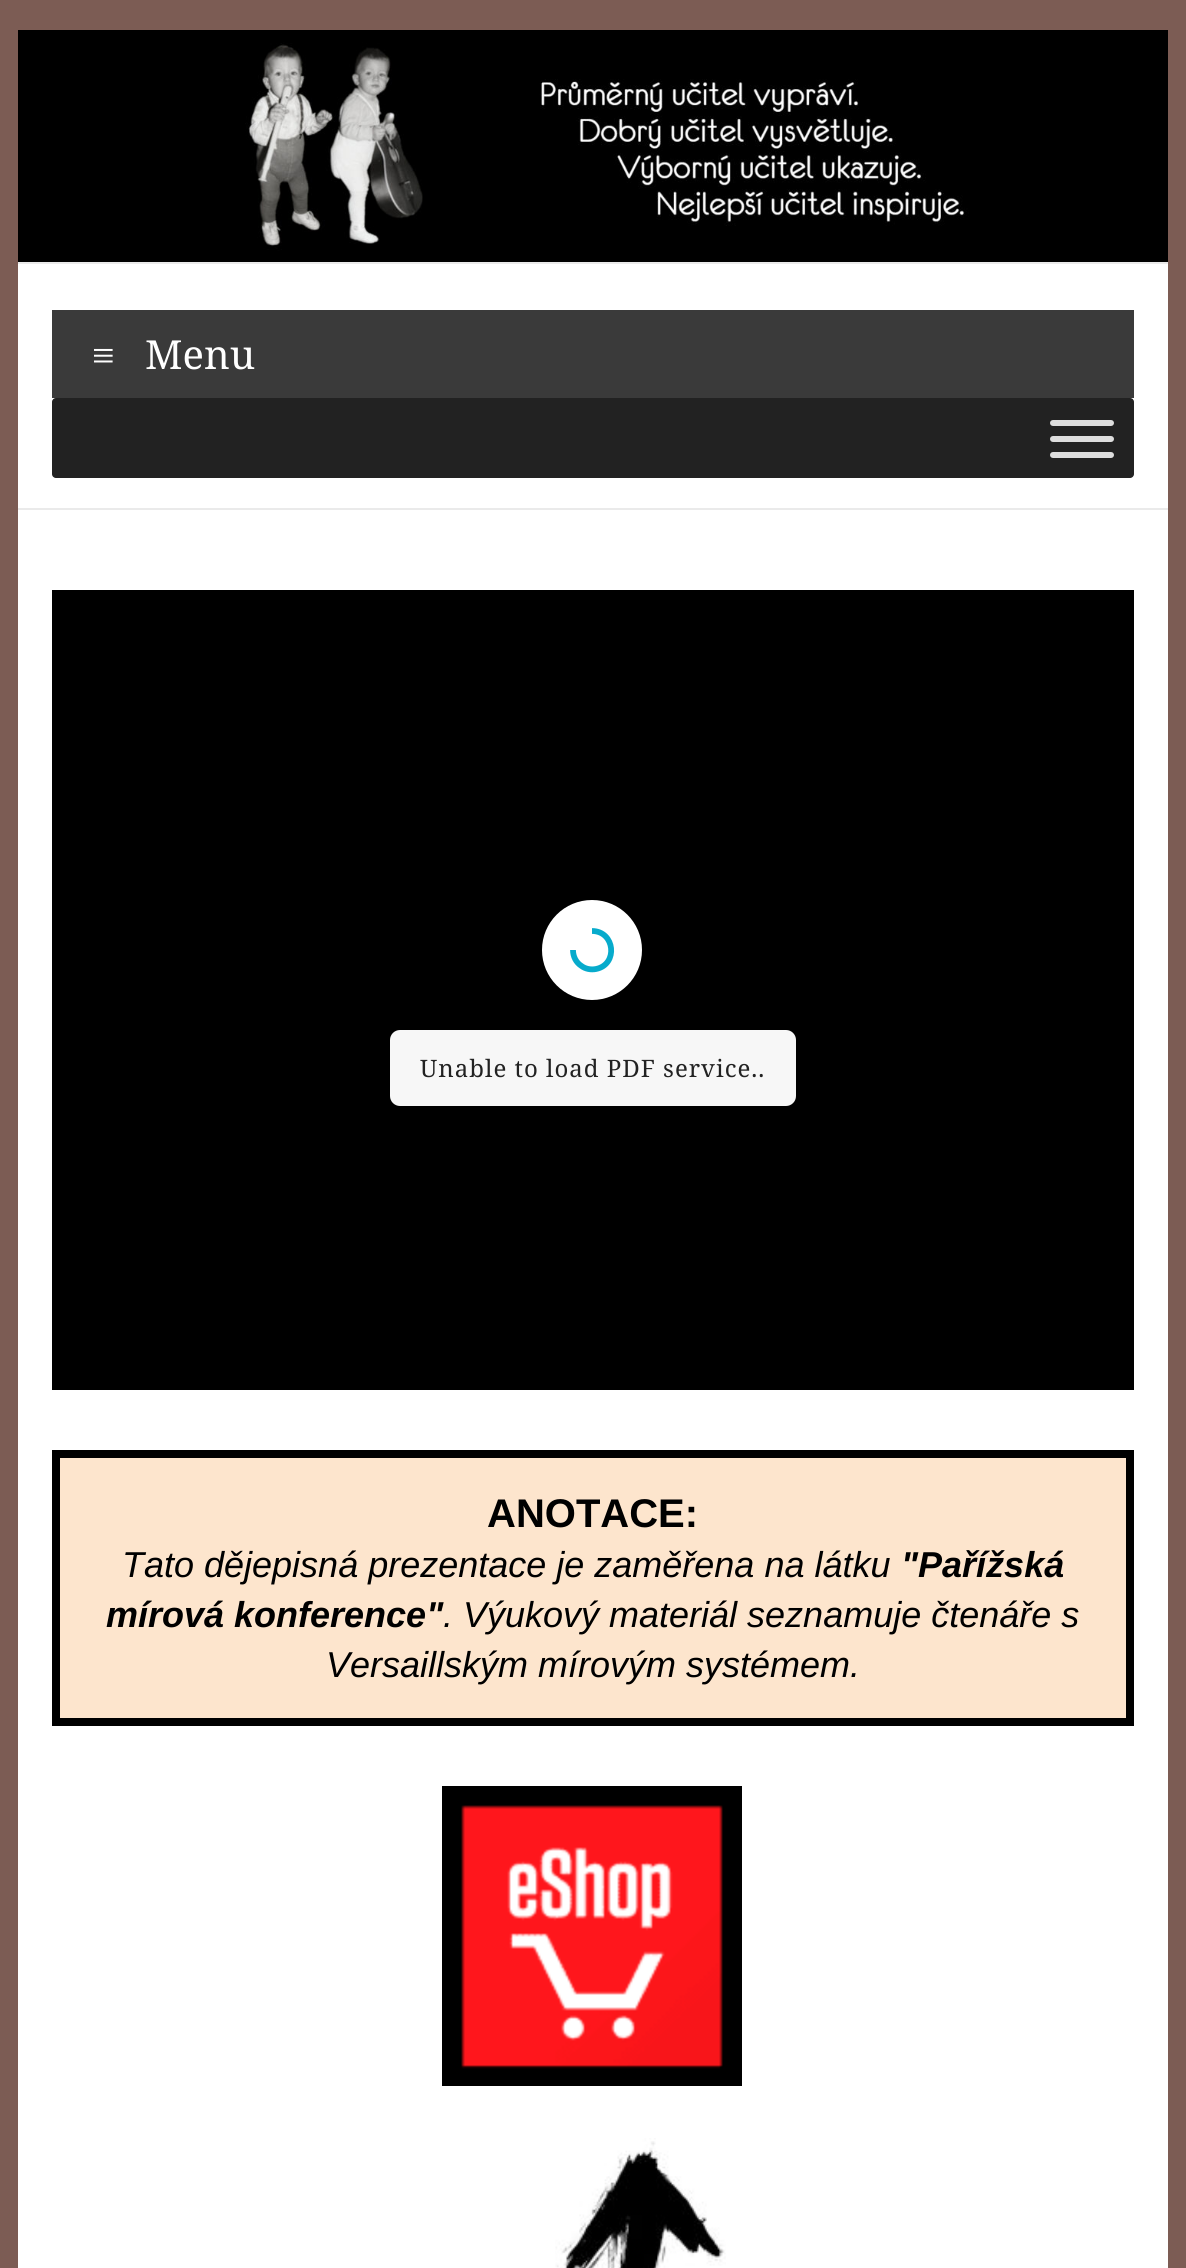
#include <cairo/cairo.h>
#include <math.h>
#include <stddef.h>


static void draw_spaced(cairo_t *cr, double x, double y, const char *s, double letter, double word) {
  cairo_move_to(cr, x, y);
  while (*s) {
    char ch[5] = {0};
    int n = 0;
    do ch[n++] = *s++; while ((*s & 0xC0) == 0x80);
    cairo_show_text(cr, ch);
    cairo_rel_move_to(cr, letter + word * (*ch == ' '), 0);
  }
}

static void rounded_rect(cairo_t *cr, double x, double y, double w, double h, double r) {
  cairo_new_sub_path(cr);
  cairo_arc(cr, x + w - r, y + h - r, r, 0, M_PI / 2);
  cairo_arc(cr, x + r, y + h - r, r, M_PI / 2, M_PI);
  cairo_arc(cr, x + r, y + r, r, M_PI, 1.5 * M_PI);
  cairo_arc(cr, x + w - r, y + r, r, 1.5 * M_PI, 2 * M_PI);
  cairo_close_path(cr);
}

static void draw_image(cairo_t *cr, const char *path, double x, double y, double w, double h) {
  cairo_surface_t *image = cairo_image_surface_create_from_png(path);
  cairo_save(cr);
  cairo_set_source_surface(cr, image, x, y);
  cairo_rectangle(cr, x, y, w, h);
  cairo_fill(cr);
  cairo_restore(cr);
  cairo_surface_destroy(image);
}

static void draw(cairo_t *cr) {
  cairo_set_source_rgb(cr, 124 / 255.0, 92 / 255.0, 84 / 255.0);
  cairo_paint(cr);
  cairo_set_source_rgb(cr, 1, 1, 1);
  cairo_rectangle(cr, 18, 264, 1150, 2004);
  cairo_fill(cr);
  draw_image(cr, "images/1.png", 18, 30, 1150, 232);
  cairo_set_source_rgb(cr, 234 / 255.0, 234 / 255.0, 234 / 255.0);
  cairo_rectangle(cr, 18, 262, 1150, 2);
  cairo_fill(cr);
  cairo_rectangle(cr, 18, 508, 1150, 2);
  cairo_fill(cr);
  cairo_set_source_rgb(cr, 58 / 255.0, 58 / 255.0, 58 / 255.0);
  cairo_rectangle(cr, 52, 310, 1082, 88);
  cairo_fill(cr);
  cairo_set_source_rgb(cr, 34 / 255.0, 34 / 255.0, 34 / 255.0);
  rounded_rect(cr, 52, 398, 1082, 80, 4);
  cairo_fill(cr);
  cairo_set_source_rgb(cr, 221 / 255.0, 221 / 255.0, 221 / 255.0);
  rounded_rect(cr, 1050, 420, 64, 6, 3);
  cairo_fill(cr);
  rounded_rect(cr, 1050, 436, 64, 6, 3);
  cairo_fill(cr);
  rounded_rect(cr, 1050, 452, 64, 6, 3);
  cairo_fill(cr);
  cairo_set_source_rgb(cr, 0, 0, 0);
  cairo_rectangle(cr, 52, 590, 1082, 800);
  cairo_fill(cr);
  cairo_set_source_rgb(cr, 1, 1, 1);
  cairo_arc(cr, 592, 950, 50, 0, 2 * M_PI);
  cairo_fill(cr);
  cairo_new_path(cr);
  cairo_move_to(cr, 592, 931);
  cairo_curve_to(cr, 615, 931, 618.5, 964.5, 596, 969);
  cairo_curve_to(cr, 591, 970, 585.5, 969, 581.5, 966);
  cairo_curve_to(cr, 576, 962.5, 573, 956.5, 573, 950);
  cairo_set_source_rgb(cr, 7 / 255.0, 171 / 255.0, 204 / 255.0);
  cairo_set_line_width(cr, 5.8);
  cairo_stroke(cr);
  cairo_set_source_rgb(cr, 247 / 255.0, 247 / 255.0, 247 / 255.0);
  rounded_rect(cr, 390, 1030, 406, 76, 10);
  cairo_fill(cr);
  cairo_set_source_rgb(cr, 253 / 255.0, 229 / 255.0, 205 / 255.0);
  cairo_rectangle(cr, 56, 1454, 1074, 268);
  cairo_fill_preserve(cr);
  cairo_set_source_rgb(cr, 0, 0, 0);
  cairo_set_line_width(cr, 8);
  cairo_stroke(cr);
  draw_image(cr, "images/2.png", 442, 1786, 300, 300);
  draw_image(cr, "images/3.png", 555, 2138, 171, 130);
  cairo_select_font_face(cr, "Liberation Serif", CAIRO_FONT_SLANT_NORMAL, CAIRO_FONT_WEIGHT_NORMAL);
  cairo_set_font_size(cr, 40);
  cairo_set_source_rgb(cr, 1, 1, 1);
  cairo_move_to(cr, 92, 369);
  cairo_show_text(cr, "≡");
  cairo_select_font_face(cr, "Noto Serif", CAIRO_FONT_SLANT_NORMAL, CAIRO_FONT_WEIGHT_NORMAL);
  cairo_move_to(cr, 145, 369);
  cairo_show_text(cr, "Menu");
  cairo_set_font_size(cr, 24);
  cairo_set_source_rgb(cr, 34 / 255.0, 34 / 255.0, 34 / 255.0);
  draw_spaced(cr, 420, 1077, "Unable to load PDF service..", 1, 0);
  cairo_select_font_face(cr, "Liberation Sans", CAIRO_FONT_SLANT_NORMAL, CAIRO_FONT_WEIGHT_BOLD);
  cairo_set_font_size(cr, 40);
  cairo_set_source_rgb(cr, 0, 0, 0);
  cairo_move_to(cr, 487, 1527);
  cairo_show_text(cr, "ANOTACE:");
  cairo_select_font_face(cr, "Liberation Sans", CAIRO_FONT_SLANT_ITALIC, CAIRO_FONT_WEIGHT_NORMAL);
  cairo_set_font_size(cr, 36);
  cairo_move_to(cr, 122, 1577);
  cairo_show_text(cr, "Tato dějepisná prezentace je zaměřena na látku");
  cairo_select_font_face(cr, "Liberation Sans", CAIRO_FONT_SLANT_ITALIC, CAIRO_FONT_WEIGHT_BOLD);
  cairo_move_to(cr, 901, 1577);
  cairo_show_text(cr, "\"Pařížská");
  cairo_move_to(cr, 106, 1627);
  cairo_show_text(cr, "mírová konference\"");
  cairo_select_font_face(cr, "Liberation Sans", CAIRO_FONT_SLANT_ITALIC, CAIRO_FONT_WEIGHT_NORMAL);
  cairo_move_to(cr, 443, 1627);
  cairo_show_text(cr, ". Výukový materiál seznamuje čtenáře s");
  cairo_move_to(cr, 326, 1677);
  cairo_show_text(cr, "Versaillským mírovým systémem.");
}

int main(void) {
  cairo_surface_t *surface = cairo_image_surface_create(CAIRO_FORMAT_RGB24, 1186, 2268);
  cairo_t *cr = cairo_create(surface);
  cairo_font_options_t *options = cairo_font_options_create();
  cairo_font_options_set_hint_metrics(options, CAIRO_HINT_METRICS_OFF);
  cairo_font_options_set_hint_style(options, CAIRO_HINT_STYLE_NONE);
  cairo_set_font_options(cr, options);
  cairo_set_miter_limit(cr, 4);
  draw(cr);
  cairo_surface_write_to_png(surface, "out.png");
  cairo_font_options_destroy(options);
  cairo_destroy(cr);
  cairo_surface_destroy(surface);
  return 0;
}
